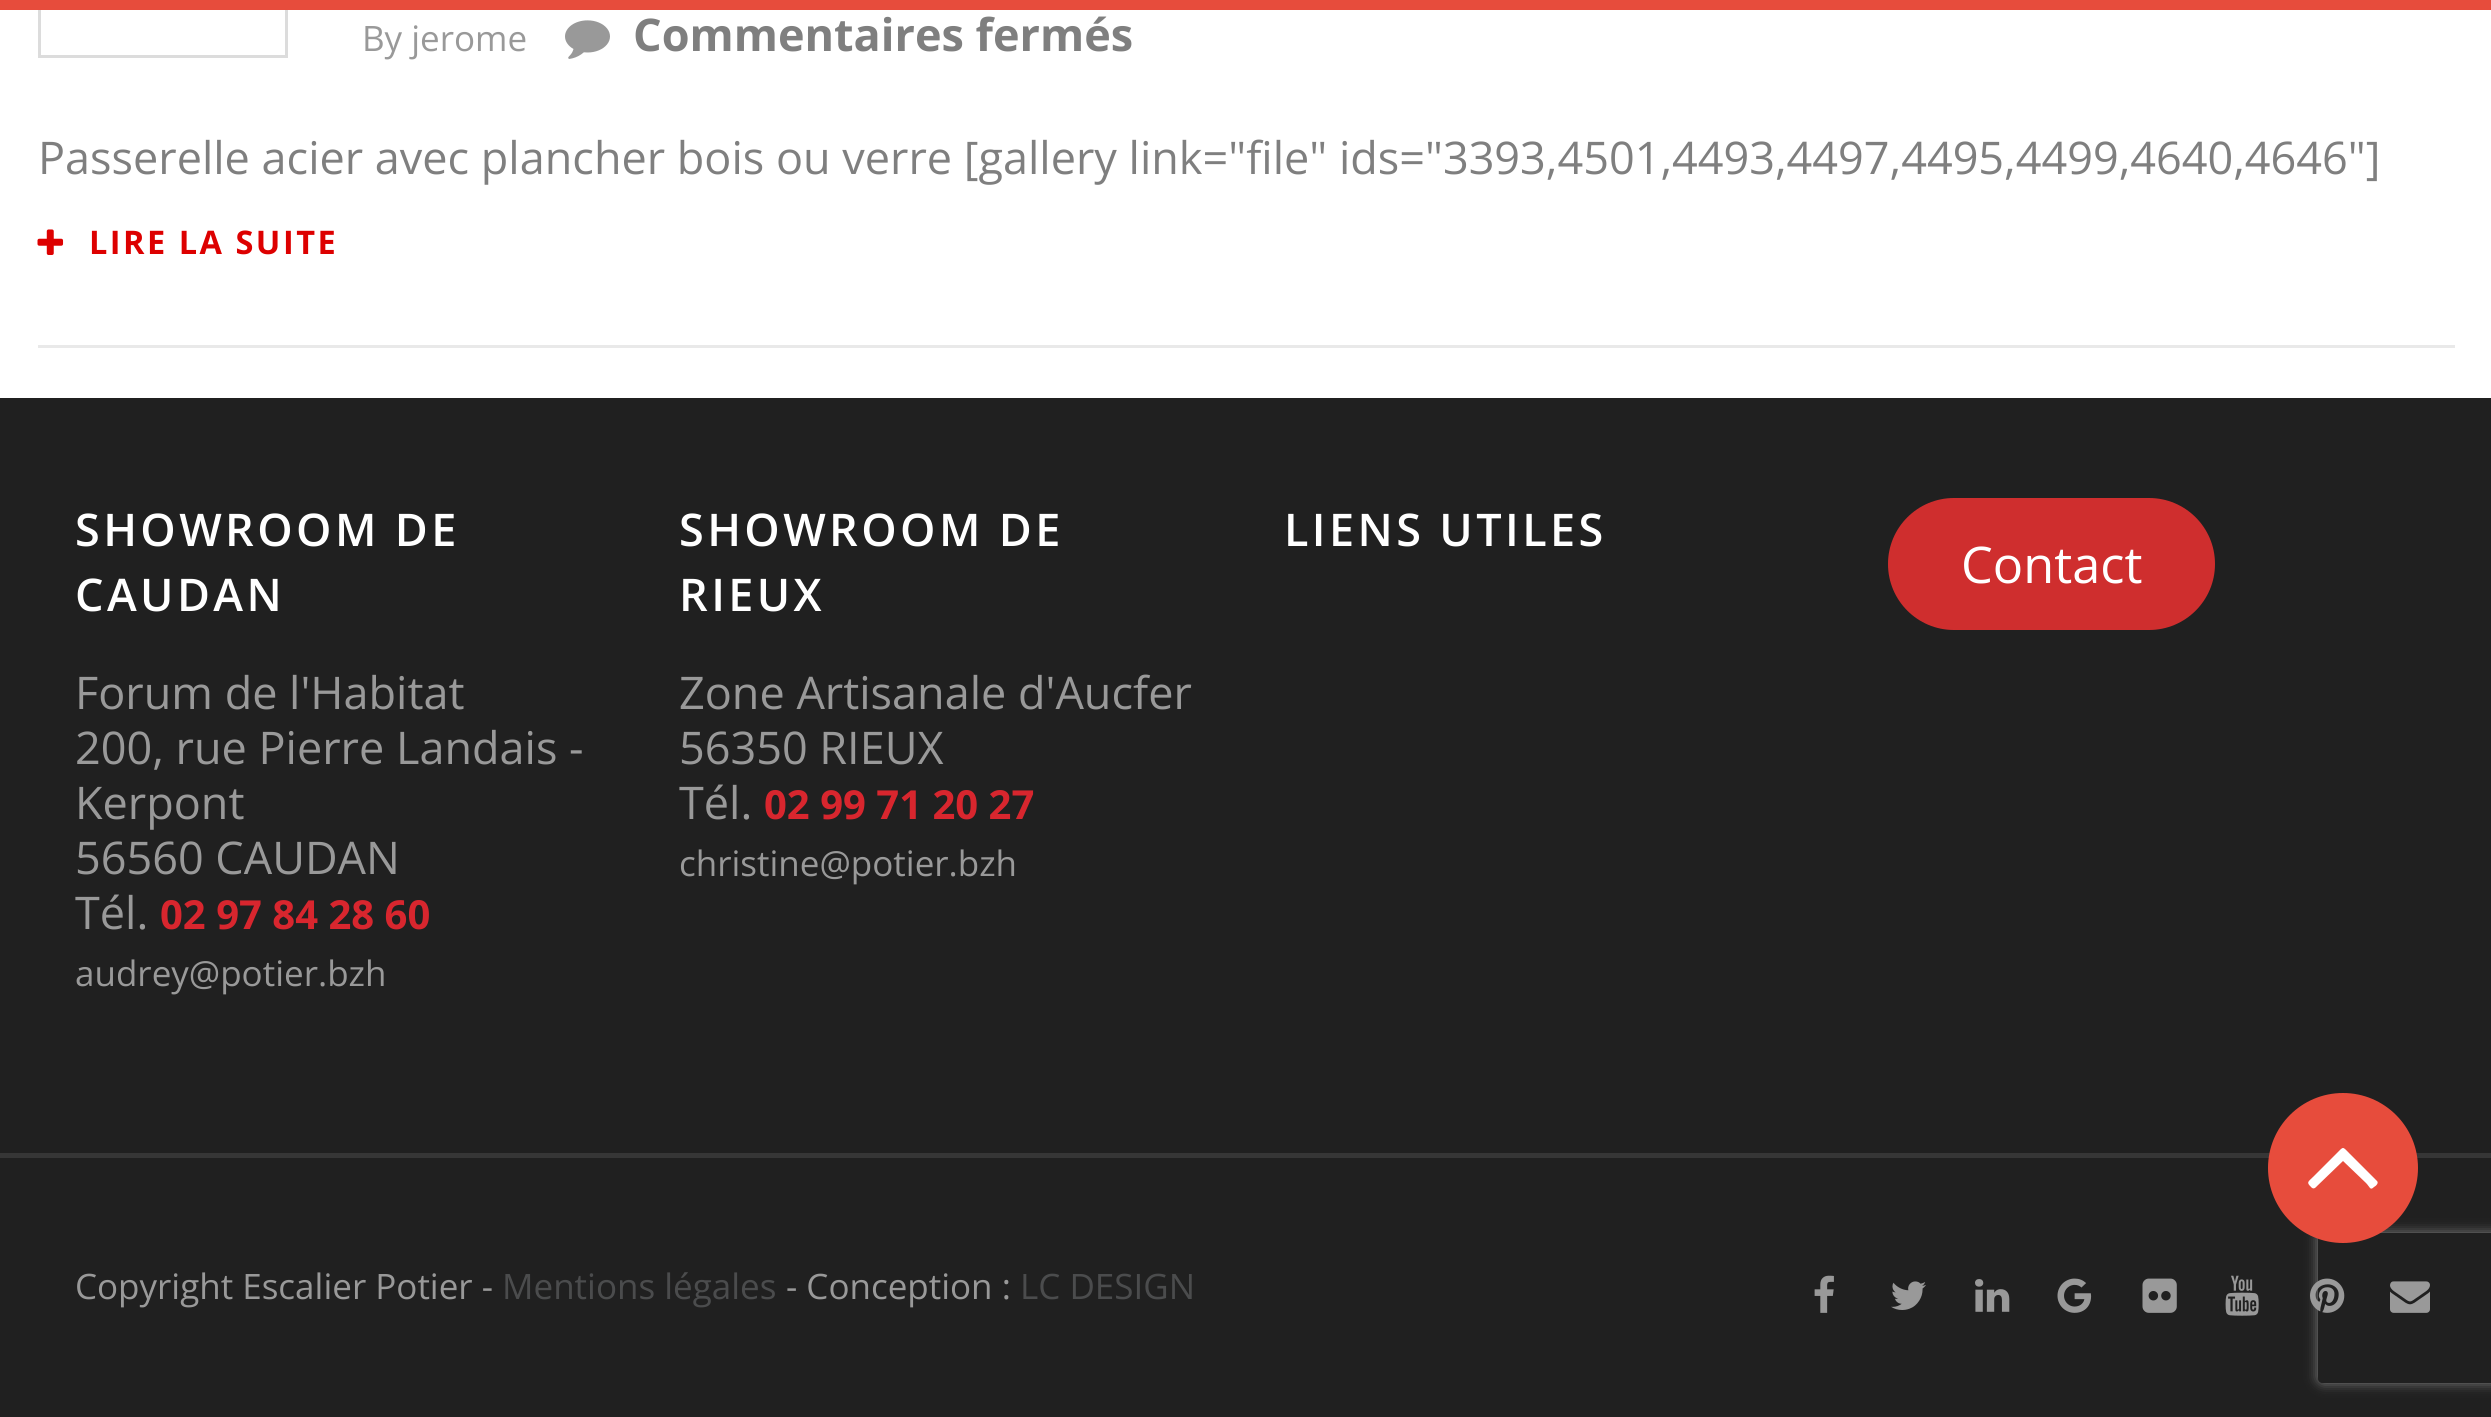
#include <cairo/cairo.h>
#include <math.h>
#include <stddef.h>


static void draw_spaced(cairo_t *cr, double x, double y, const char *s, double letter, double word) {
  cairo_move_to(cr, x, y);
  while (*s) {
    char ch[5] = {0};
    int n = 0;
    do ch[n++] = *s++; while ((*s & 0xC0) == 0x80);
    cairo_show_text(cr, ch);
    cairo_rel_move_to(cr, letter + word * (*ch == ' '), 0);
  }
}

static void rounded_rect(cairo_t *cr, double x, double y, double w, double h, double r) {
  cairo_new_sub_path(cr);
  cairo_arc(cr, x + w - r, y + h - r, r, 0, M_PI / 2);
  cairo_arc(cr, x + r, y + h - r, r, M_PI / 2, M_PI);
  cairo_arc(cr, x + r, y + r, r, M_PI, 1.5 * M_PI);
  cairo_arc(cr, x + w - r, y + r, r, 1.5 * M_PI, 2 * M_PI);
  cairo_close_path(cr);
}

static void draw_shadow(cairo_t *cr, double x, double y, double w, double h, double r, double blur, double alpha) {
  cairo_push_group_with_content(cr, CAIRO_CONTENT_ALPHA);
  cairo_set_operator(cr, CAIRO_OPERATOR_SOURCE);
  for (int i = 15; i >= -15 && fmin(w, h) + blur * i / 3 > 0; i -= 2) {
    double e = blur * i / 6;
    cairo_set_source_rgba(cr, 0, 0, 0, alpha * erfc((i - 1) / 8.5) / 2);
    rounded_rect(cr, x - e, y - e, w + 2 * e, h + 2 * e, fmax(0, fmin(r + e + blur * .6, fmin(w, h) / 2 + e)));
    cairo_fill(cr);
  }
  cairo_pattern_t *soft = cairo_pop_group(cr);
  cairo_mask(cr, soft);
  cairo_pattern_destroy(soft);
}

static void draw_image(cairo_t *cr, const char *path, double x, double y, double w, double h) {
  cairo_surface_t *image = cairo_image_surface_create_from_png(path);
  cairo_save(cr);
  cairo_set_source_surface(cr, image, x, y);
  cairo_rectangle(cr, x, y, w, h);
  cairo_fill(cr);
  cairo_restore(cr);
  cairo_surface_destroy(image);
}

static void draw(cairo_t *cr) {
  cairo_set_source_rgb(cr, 1, 1, 1);
  cairo_paint(cr);
  cairo_rectangle(cr, 39.5, -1.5, 247, 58);
  cairo_set_source_rgb(cr, 220 / 255.0, 220 / 255.0, 220 / 255.0);
  cairo_set_line_width(cr, 3);
  cairo_stroke(cr);
  cairo_set_source_rgb(cr, 231 / 255.0, 76 / 255.0, 60 / 255.0);
  cairo_rectangle(cr, 0, 0, 2491, 10);
  cairo_fill(cr);
  cairo_set_source_rgb(cr, 233 / 255.0, 233 / 255.0, 233 / 255.0);
  cairo_rectangle(cr, 38, 345, 2417, 3);
  cairo_fill(cr);
  draw_image(cr, "images/1.png", 565, 20, 45, 39);
  draw_image(cr, "images/2.png", 37, 229, 27, 26);
  cairo_set_source_rgb(cr, 32 / 255.0, 32 / 255.0, 32 / 255.0);
  cairo_rectangle(cr, 0, 398, 2491, 755);
  cairo_fill(cr);
  cairo_set_source_rgb(cr, 207 / 255.0, 46 / 255.0, 46 / 255.0);
  rounded_rect(cr, 1888, 498, 327, 132, 66);
  cairo_fill(cr);
  cairo_set_source_rgb(cr, 32 / 255.0, 32 / 255.0, 32 / 255.0);
  cairo_rectangle(cr, 0, 1158, 2491, 259);
  cairo_fill(cr);
  cairo_set_source_rgb(cr, 54 / 255.0, 54 / 255.0, 54 / 255.0);
  cairo_rectangle(cr, 0, 1153, 2491, 5);
  cairo_fill(cr);
  draw_image(cr, "images/3.png", 1814, 1275, 20, 38);
  draw_image(cr, "images/4.png", 1891, 1281, 35, 29);
  draw_image(cr, "images/5.png", 1975, 1279, 35, 33);
  draw_image(cr, "images/6.png", 2057, 1278, 35, 35);
  draw_image(cr, "images/7.png", 2142, 1278, 35, 35);
  draw_image(cr, "images/8.png", 2225, 1275, 34, 41);
  cairo_save(cr);
  cairo_set_fill_rule(cr, CAIRO_FILL_RULE_EVEN_ODD);
  cairo_new_path(cr);
  cairo_move_to(cr, 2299, 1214);
  cairo_line_to(cr, 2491, 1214);
  cairo_line_to(cr, 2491, 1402);
  cairo_line_to(cr, 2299, 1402);
  cairo_close_path(cr);
  cairo_move_to(cr, 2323, 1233);
  cairo_line_to(cr, 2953, 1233);
  cairo_curve_to(cr, 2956, 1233, 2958, 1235, 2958, 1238);
  cairo_line_to(cr, 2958, 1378);
  cairo_curve_to(cr, 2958, 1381, 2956, 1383, 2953, 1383);
  cairo_line_to(cr, 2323, 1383);
  cairo_curve_to(cr, 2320, 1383, 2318, 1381, 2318, 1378);
  cairo_line_to(cr, 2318, 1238);
  cairo_curve_to(cr, 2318, 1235, 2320, 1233, 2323, 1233);
  cairo_close_path(cr);
  cairo_clip(cr);
  cairo_set_source_rgb(cr, 128 / 255.0, 128 / 255.0, 128 / 255.0);
  draw_shadow(cr, 2318, 1233, 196, 150, 5, 6, 1);
  cairo_restore(cr);
  draw_image(cr, "images/9.png", 2310, 1278, 35, 35);
  draw_image(cr, "images/10.png", 2390, 1281, 40, 32);
  cairo_set_source_rgb(cr, 231 / 255.0, 76 / 255.0, 60 / 255.0);
  cairo_arc(cr, 2343, 1168, 70, 0, 2 * M_PI);
  cairo_fill_preserve(cr);
  cairo_set_line_width(cr, 10);
  cairo_stroke(cr);
  cairo_set_source_rgb(cr, 1, 1, 1);
  cairo_new_path(cr);
  cairo_move_to(cr, 2377, 1181);
  cairo_curve_to(cr, 2379, 1183, 2376, 1186, 2374, 1187);
  cairo_curve_to(cr, 2370, 1191, 2370, 1187, 2366, 1183);
  cairo_line_to(cr, 2343, 1161);
  cairo_line_to(cr, 2315, 1188);
  cairo_curve_to(cr, 2313, 1189, 2312, 1188, 2311, 1187);
  cairo_curve_to(cr, 2306, 1182, 2308, 1182, 2314, 1176);
  cairo_line_to(cr, 2336, 1154);
  cairo_curve_to(cr, 2344, 1146, 2342, 1146, 2350, 1154);
  cairo_close_path(cr);
  cairo_fill(cr);
  cairo_select_font_face(cr, "Open Sans", CAIRO_FONT_SLANT_NORMAL, CAIRO_FONT_WEIGHT_NORMAL);
  cairo_set_font_size(cr, 35);
  cairo_set_source_rgb(cr, 153 / 255.0, 153 / 255.0, 153 / 255.0);
  cairo_move_to(cr, 362, 51);
  cairo_show_text(cr, "By jerome");
  cairo_select_font_face(cr, "Open Sans", CAIRO_FONT_SLANT_NORMAL, CAIRO_FONT_WEIGHT_BOLD);
  cairo_set_font_size(cr, 45);
  cairo_set_source_rgb(cr, 127 / 255.0, 127 / 255.0, 127 / 255.0);
  cairo_move_to(cr, 633, 51);
  cairo_show_text(cr, "Commentaires fermés");
  cairo_select_font_face(cr, "Open Sans", CAIRO_FONT_SLANT_NORMAL, CAIRO_FONT_WEIGHT_NORMAL);
  cairo_move_to(cr, 38, 174);
  cairo_show_text(cr, "Passerelle acier avec plancher bois ou verre [gallery link=\"file\" ids=\"3393,4501,4493,4497,4495,4499,4640,4646\"]");
  cairo_select_font_face(cr, "Open Sans", CAIRO_FONT_SLANT_NORMAL, CAIRO_FONT_WEIGHT_BOLD);
  cairo_set_font_size(cr, 32.5);
  cairo_set_source_rgb(cr, 221 / 255.0, 0, 0);
  draw_spaced(cr, 89, 254, "LIRE LA SUITE", 2.5, 0);
  cairo_select_font_face(cr, "Open Sans SemiBold", CAIRO_FONT_SLANT_NORMAL, CAIRO_FONT_WEIGHT_NORMAL);
  cairo_set_font_size(cr, 45);
  cairo_set_source_rgb(cr, 1, 1, 1);
  draw_spaced(cr, 75, 546, "SHOWROOM DE", 3.4, 0);
  draw_spaced(cr, 75, 611, "CAUDAN", 3.4, 0);
  cairo_select_font_face(cr, "Open Sans", CAIRO_FONT_SLANT_NORMAL, CAIRO_FONT_WEIGHT_NORMAL);
  cairo_set_source_rgb(cr, 153 / 255.0, 153 / 255.0, 153 / 255.0);
  cairo_move_to(cr, 75, 709);
  cairo_show_text(cr, "Forum de l'Habitat");
  cairo_move_to(cr, 75, 764);
  cairo_show_text(cr, "200, rue Pierre Landais -");
  cairo_move_to(cr, 75, 819);
  cairo_show_text(cr, "Kerpont");
  cairo_move_to(cr, 75, 874);
  cairo_show_text(cr, "56560 CAUDAN");
  cairo_move_to(cr, 75, 929);
  cairo_show_text(cr, "Tél.");
  cairo_select_font_face(cr, "Open Sans", CAIRO_FONT_SLANT_NORMAL, CAIRO_FONT_WEIGHT_BOLD);
  cairo_set_font_size(cr, 40);
  cairo_set_source_rgb(cr, 216 / 255.0, 38 / 255.0, 46 / 255.0);
  cairo_move_to(cr, 160, 929);
  cairo_show_text(cr, "02 97 84 28 60");
  cairo_select_font_face(cr, "Open Sans", CAIRO_FONT_SLANT_NORMAL, CAIRO_FONT_WEIGHT_NORMAL);
  cairo_set_font_size(cr, 35);
  cairo_set_source_rgb(cr, 153 / 255.0, 153 / 255.0, 153 / 255.0);
  cairo_move_to(cr, 75, 986);
  cairo_show_text(cr, "audrey@potier.bzh");
  cairo_select_font_face(cr, "Open Sans SemiBold", CAIRO_FONT_SLANT_NORMAL, CAIRO_FONT_WEIGHT_NORMAL);
  cairo_set_font_size(cr, 45);
  cairo_set_source_rgb(cr, 1, 1, 1);
  draw_spaced(cr, 679, 546, "SHOWROOM DE", 3.4, 0);
  draw_spaced(cr, 679, 611, "RIEUX", 3.4, 0);
  cairo_select_font_face(cr, "Open Sans", CAIRO_FONT_SLANT_NORMAL, CAIRO_FONT_WEIGHT_NORMAL);
  cairo_set_source_rgb(cr, 153 / 255.0, 153 / 255.0, 153 / 255.0);
  cairo_move_to(cr, 679, 709);
  cairo_show_text(cr, "Zone Artisanale d'Aucfer");
  cairo_move_to(cr, 679, 764);
  cairo_show_text(cr, "56350 RIEUX");
  cairo_move_to(cr, 679, 819);
  cairo_show_text(cr, "Tél.");
  cairo_select_font_face(cr, "Open Sans", CAIRO_FONT_SLANT_NORMAL, CAIRO_FONT_WEIGHT_BOLD);
  cairo_set_font_size(cr, 40);
  cairo_set_source_rgb(cr, 216 / 255.0, 38 / 255.0, 46 / 255.0);
  cairo_move_to(cr, 764, 819);
  cairo_show_text(cr, "02 99 71 20 27");
  cairo_select_font_face(cr, "Open Sans", CAIRO_FONT_SLANT_NORMAL, CAIRO_FONT_WEIGHT_NORMAL);
  cairo_set_font_size(cr, 35);
  cairo_set_source_rgb(cr, 153 / 255.0, 153 / 255.0, 153 / 255.0);
  cairo_move_to(cr, 679, 876);
  cairo_show_text(cr, "christine@potier.bzh");
  cairo_select_font_face(cr, "Open Sans SemiBold", CAIRO_FONT_SLANT_NORMAL, CAIRO_FONT_WEIGHT_NORMAL);
  cairo_set_font_size(cr, 45);
  cairo_set_source_rgb(cr, 1, 1, 1);
  draw_spaced(cr, 1284, 546, "LIENS UTILES", 3.4, 0);
  cairo_select_font_face(cr, "Open Sans", CAIRO_FONT_SLANT_NORMAL, CAIRO_FONT_WEIGHT_NORMAL);
  cairo_set_font_size(cr, 50.5);
  cairo_move_to(cr, 1961, 583);
  cairo_show_text(cr, "Contact");
  cairo_set_font_size(cr, 35);
  cairo_set_source_rgb(cr, 153 / 255.0, 153 / 255.0, 153 / 255.0);
  cairo_move_to(cr, 75, 1299);
  cairo_show_text(cr, "Copyright Escalier Potier -");
  cairo_set_source_rgb(cr, 75 / 255.0, 76 / 255.0, 77 / 255.0);
  cairo_move_to(cr, 502, 1299);
  cairo_show_text(cr, "Mentions légales");
  cairo_set_source_rgb(cr, 153 / 255.0, 153 / 255.0, 153 / 255.0);
  cairo_move_to(cr, 786, 1299);
  cairo_show_text(cr, "- Conception :");
  cairo_set_source_rgb(cr, 75 / 255.0, 76 / 255.0, 77 / 255.0);
  cairo_move_to(cr, 1020, 1299);
  cairo_show_text(cr, "LC DESIGN");
}

int main(void) {
  cairo_surface_t *surface = cairo_image_surface_create(CAIRO_FORMAT_RGB24, 2491, 1417);
  cairo_t *cr = cairo_create(surface);
  cairo_font_options_t *options = cairo_font_options_create();
  cairo_font_options_set_hint_metrics(options, CAIRO_HINT_METRICS_OFF);
  cairo_font_options_set_hint_style(options, CAIRO_HINT_STYLE_NONE);
  cairo_set_font_options(cr, options);
  cairo_set_miter_limit(cr, 4);
  draw(cr);
  cairo_surface_write_to_png(surface, "out.png");
  cairo_font_options_destroy(options);
  cairo_destroy(cr);
  cairo_surface_destroy(surface);
  return 0;
}
